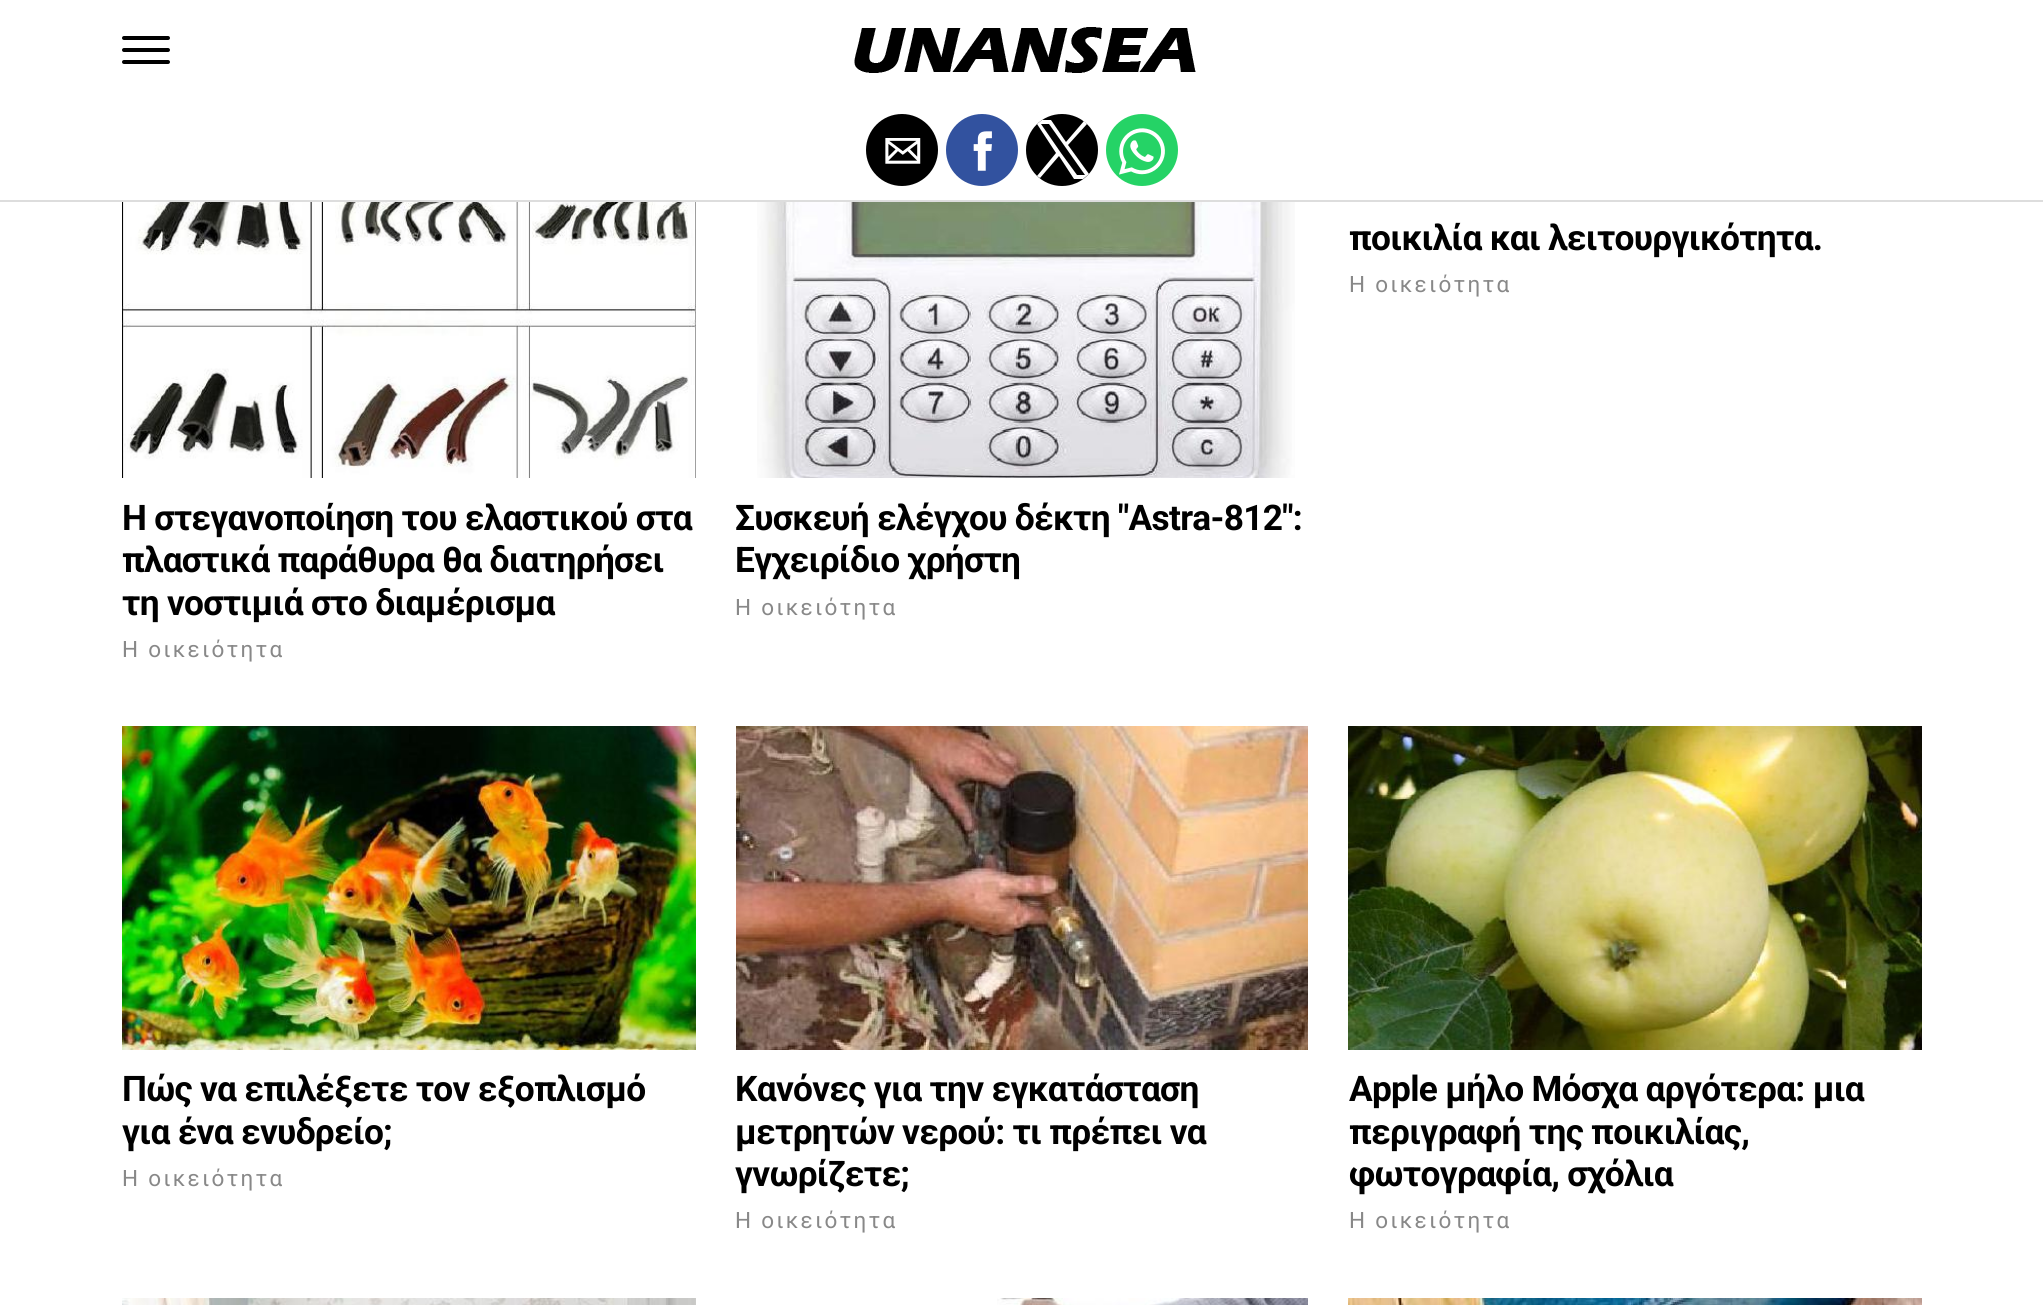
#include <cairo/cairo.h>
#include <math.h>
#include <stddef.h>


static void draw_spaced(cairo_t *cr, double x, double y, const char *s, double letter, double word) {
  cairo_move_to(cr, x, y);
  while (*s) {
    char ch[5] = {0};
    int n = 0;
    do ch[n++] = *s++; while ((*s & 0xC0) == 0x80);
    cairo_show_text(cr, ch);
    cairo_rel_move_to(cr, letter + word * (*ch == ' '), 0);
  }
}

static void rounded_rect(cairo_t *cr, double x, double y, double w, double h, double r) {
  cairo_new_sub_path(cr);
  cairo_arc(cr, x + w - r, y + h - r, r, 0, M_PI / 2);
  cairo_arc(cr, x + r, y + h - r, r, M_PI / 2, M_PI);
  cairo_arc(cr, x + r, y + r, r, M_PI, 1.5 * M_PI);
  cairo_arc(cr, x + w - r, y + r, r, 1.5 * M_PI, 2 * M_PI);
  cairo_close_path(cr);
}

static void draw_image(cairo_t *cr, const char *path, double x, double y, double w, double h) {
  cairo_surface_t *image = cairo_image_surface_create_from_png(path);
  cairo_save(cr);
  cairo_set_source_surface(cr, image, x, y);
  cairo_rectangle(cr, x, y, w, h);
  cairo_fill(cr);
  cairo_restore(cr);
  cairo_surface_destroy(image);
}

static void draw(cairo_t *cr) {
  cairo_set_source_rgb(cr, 1, 1, 1);
  cairo_paint(cr);
  cairo_set_source_rgb(cr, 0, 0, 0);
  rounded_rect(cr, 122, 36, 48, 4, 2);
  cairo_fill(cr);
  rounded_rect(cr, 122, 48, 48, 4, 2);
  cairo_fill(cr);
  rounded_rect(cr, 122, 60, 48, 4, 2);
  cairo_fill(cr);
  draw_image(cr, "images/1.png", 854, 27, 342, 46);
  cairo_set_source_rgb(cr, 221 / 255.0, 221 / 255.0, 221 / 255.0);
  cairo_rectangle(cr, 0, 200, 2043, 2);
  cairo_fill(cr);
  cairo_set_source_rgb(cr, 0, 0, 0);
  cairo_arc(cr, 902, 150, 36, 0, 2 * M_PI);
  cairo_fill(cr);
  draw_image(cr, "images/2.png", 885, 138, 36, 26);
  cairo_set_source_rgb(cr, 50 / 255.0, 82 / 255.0, 159 / 255.0);
  cairo_arc(cr, 982, 150, 36, 0, 2 * M_PI);
  cairo_fill(cr);
  draw_image(cr, "images/3.png", 973, 131, 19, 40);
  cairo_set_source_rgb(cr, 0, 0, 0);
  cairo_arc(cr, 1062, 150, 36, 0, 2 * M_PI);
  cairo_fill(cr);
  cairo_set_source_rgb(cr, 1, 1, 1);
  cairo_set_fill_rule(cr, CAIRO_FILL_RULE_EVEN_ODD);
  cairo_new_path(cr);
  cairo_move_to(cr, 1068, 145);
  cairo_line_to(cr, 1089, 174);
  cairo_line_to(cr, 1083, 179);
  cairo_line_to(cr, 1074, 179);
  cairo_line_to(cr, 1059, 156);
  cairo_line_to(cr, 1040, 178);
  cairo_line_to(cr, 1037, 176);
  cairo_line_to(cr, 1056, 153);
  cairo_line_to(cr, 1037, 124);
  cairo_line_to(cr, 1042, 120);
  cairo_line_to(cr, 1051, 120);
  cairo_line_to(cr, 1066, 142);
  cairo_line_to(cr, 1084, 121);
  cairo_line_to(cr, 1087, 124);
  cairo_close_path(cr);
  cairo_move_to(cr, 1061, 153);
  cairo_line_to(cr, 1077, 175);
  cairo_line_to(cr, 1085, 175);
  cairo_line_to(cr, 1049, 124);
  cairo_line_to(cr, 1041, 124);
  cairo_close_path(cr);
  cairo_fill(cr);
  cairo_set_source_rgb(cr, 37 / 255.0, 211 / 255.0, 102 / 255.0);
  cairo_arc(cr, 1142, 150, 36, 0, 2 * M_PI);
  cairo_fill(cr);
  draw_image(cr, "images/4.png", 1119, 128, 46, 47);
  draw_image(cr, "images/5.png", 122, 202, 574, 276);
  draw_image(cr, "images/6.png", 757, 202, 538, 276);
  draw_image(cr, "images/7.png", 122, 726, 574, 324);
  draw_image(cr, "images/8.png", 736, 726, 572, 324);
  draw_image(cr, "images/9.png", 1348, 726, 574, 324);
  draw_image(cr, "images/10.png", 122, 1298, 574, 7);
  draw_image(cr, "images/11.png", 997, 1298, 311, 7);
  draw_image(cr, "images/12.png", 1348, 1298, 574, 7);
  cairo_select_font_face(cr, "Roboto", CAIRO_FONT_SLANT_NORMAL, CAIRO_FONT_WEIGHT_BOLD);
  cairo_set_font_size(cr, 35.25);
  cairo_set_source_rgb(cr, 0, 0, 0);
  draw_spaced(cr, 1349, 250, "ποικιλία και λειτουργικότητα.", -0.7, 0);
  cairo_select_font_face(cr, "Roboto", CAIRO_FONT_SLANT_NORMAL, CAIRO_FONT_WEIGHT_NORMAL);
  cairo_set_font_size(cr, 22.5);
  cairo_set_source_rgb(cr, 136 / 255.0, 136 / 255.0, 136 / 255.0);
  draw_spaced(cr, 1349, 292, "Η οικειότητα", 2.25, 0);
  cairo_select_font_face(cr, "Roboto", CAIRO_FONT_SLANT_NORMAL, CAIRO_FONT_WEIGHT_BOLD);
  cairo_set_font_size(cr, 35.25);
  cairo_set_source_rgb(cr, 0, 0, 0);
  draw_spaced(cr, 122, 530, "Η στεγανοποίηση του ελαστικού στα", -0.7, 0);
  draw_spaced(cr, 122, 572, "πλαστικά παράθυρα θα διατηρήσει", -0.7, 0);
  draw_spaced(cr, 122, 615, "τη νοστιμιά στο διαμέρισμα", -0.7, 0);
  cairo_select_font_face(cr, "Roboto", CAIRO_FONT_SLANT_NORMAL, CAIRO_FONT_WEIGHT_NORMAL);
  cairo_set_font_size(cr, 22.5);
  cairo_set_source_rgb(cr, 136 / 255.0, 136 / 255.0, 136 / 255.0);
  draw_spaced(cr, 122, 657, "Η οικειότητα", 2.25, 0);
  cairo_select_font_face(cr, "Roboto", CAIRO_FONT_SLANT_NORMAL, CAIRO_FONT_WEIGHT_BOLD);
  cairo_set_font_size(cr, 35.25);
  cairo_set_source_rgb(cr, 0, 0, 0);
  draw_spaced(cr, 735, 530, "Συσκευή ελέγχου δέκτη \"Astra-812\":", -0.7, 0);
  draw_spaced(cr, 735, 572, "Εγχειρίδιο χρήστη", -0.7, 0);
  cairo_select_font_face(cr, "Roboto", CAIRO_FONT_SLANT_NORMAL, CAIRO_FONT_WEIGHT_NORMAL);
  cairo_set_font_size(cr, 22.5);
  cairo_set_source_rgb(cr, 136 / 255.0, 136 / 255.0, 136 / 255.0);
  draw_spaced(cr, 735, 615, "Η οικειότητα", 2.25, 0);
  cairo_select_font_face(cr, "Roboto", CAIRO_FONT_SLANT_NORMAL, CAIRO_FONT_WEIGHT_BOLD);
  cairo_set_font_size(cr, 35.25);
  cairo_set_source_rgb(cr, 0, 0, 0);
  draw_spaced(cr, 122, 1101, "Πώς να επιλέξετε τον εξοπλισμό", -0.7, 0);
  draw_spaced(cr, 122, 1144, "για ένα ενυδρείο;", -0.7, 0);
  cairo_select_font_face(cr, "Roboto", CAIRO_FONT_SLANT_NORMAL, CAIRO_FONT_WEIGHT_NORMAL);
  cairo_set_font_size(cr, 22.5);
  cairo_set_source_rgb(cr, 136 / 255.0, 136 / 255.0, 136 / 255.0);
  draw_spaced(cr, 122, 1186, "Η οικειότητα", 2.25, 0);
  cairo_select_font_face(cr, "Roboto", CAIRO_FONT_SLANT_NORMAL, CAIRO_FONT_WEIGHT_BOLD);
  cairo_set_font_size(cr, 35.25);
  cairo_set_source_rgb(cr, 0, 0, 0);
  draw_spaced(cr, 735, 1101, "Κανόνες για την εγκατάσταση", -0.7, 0);
  draw_spaced(cr, 735, 1144, "μετρητών νερού: τι πρέπει να", -0.7, 0);
  draw_spaced(cr, 735, 1186, "γνωρίζετε;", -0.7, 0);
  cairo_select_font_face(cr, "Roboto", CAIRO_FONT_SLANT_NORMAL, CAIRO_FONT_WEIGHT_NORMAL);
  cairo_set_font_size(cr, 22.5);
  cairo_set_source_rgb(cr, 136 / 255.0, 136 / 255.0, 136 / 255.0);
  draw_spaced(cr, 735, 1228, "Η οικειότητα", 2.25, 0);
  cairo_select_font_face(cr, "Roboto", CAIRO_FONT_SLANT_NORMAL, CAIRO_FONT_WEIGHT_BOLD);
  cairo_set_font_size(cr, 35.25);
  cairo_set_source_rgb(cr, 0, 0, 0);
  draw_spaced(cr, 1349, 1101, "Apple μήλο Μόσχα αργότερα: μια", -0.7, 0);
  draw_spaced(cr, 1349, 1144, "περιγραφή της ποικιλίας,", -0.7, 0);
  draw_spaced(cr, 1349, 1186, "φωτογραφία, σχόλια", -0.7, 0);
  cairo_select_font_face(cr, "Roboto", CAIRO_FONT_SLANT_NORMAL, CAIRO_FONT_WEIGHT_NORMAL);
  cairo_set_font_size(cr, 22.5);
  cairo_set_source_rgb(cr, 136 / 255.0, 136 / 255.0, 136 / 255.0);
  draw_spaced(cr, 1349, 1228, "Η οικειότητα", 2.25, 0);
}

int main(void) {
  cairo_surface_t *surface = cairo_image_surface_create(CAIRO_FORMAT_RGB24, 2043, 1305);
  cairo_t *cr = cairo_create(surface);
  cairo_font_options_t *options = cairo_font_options_create();
  cairo_font_options_set_hint_metrics(options, CAIRO_HINT_METRICS_OFF);
  cairo_font_options_set_hint_style(options, CAIRO_HINT_STYLE_NONE);
  cairo_set_font_options(cr, options);
  cairo_set_miter_limit(cr, 4);
  draw(cr);
  cairo_surface_write_to_png(surface, "out.png");
  cairo_font_options_destroy(options);
  cairo_destroy(cr);
  cairo_surface_destroy(surface);
  return 0;
}
